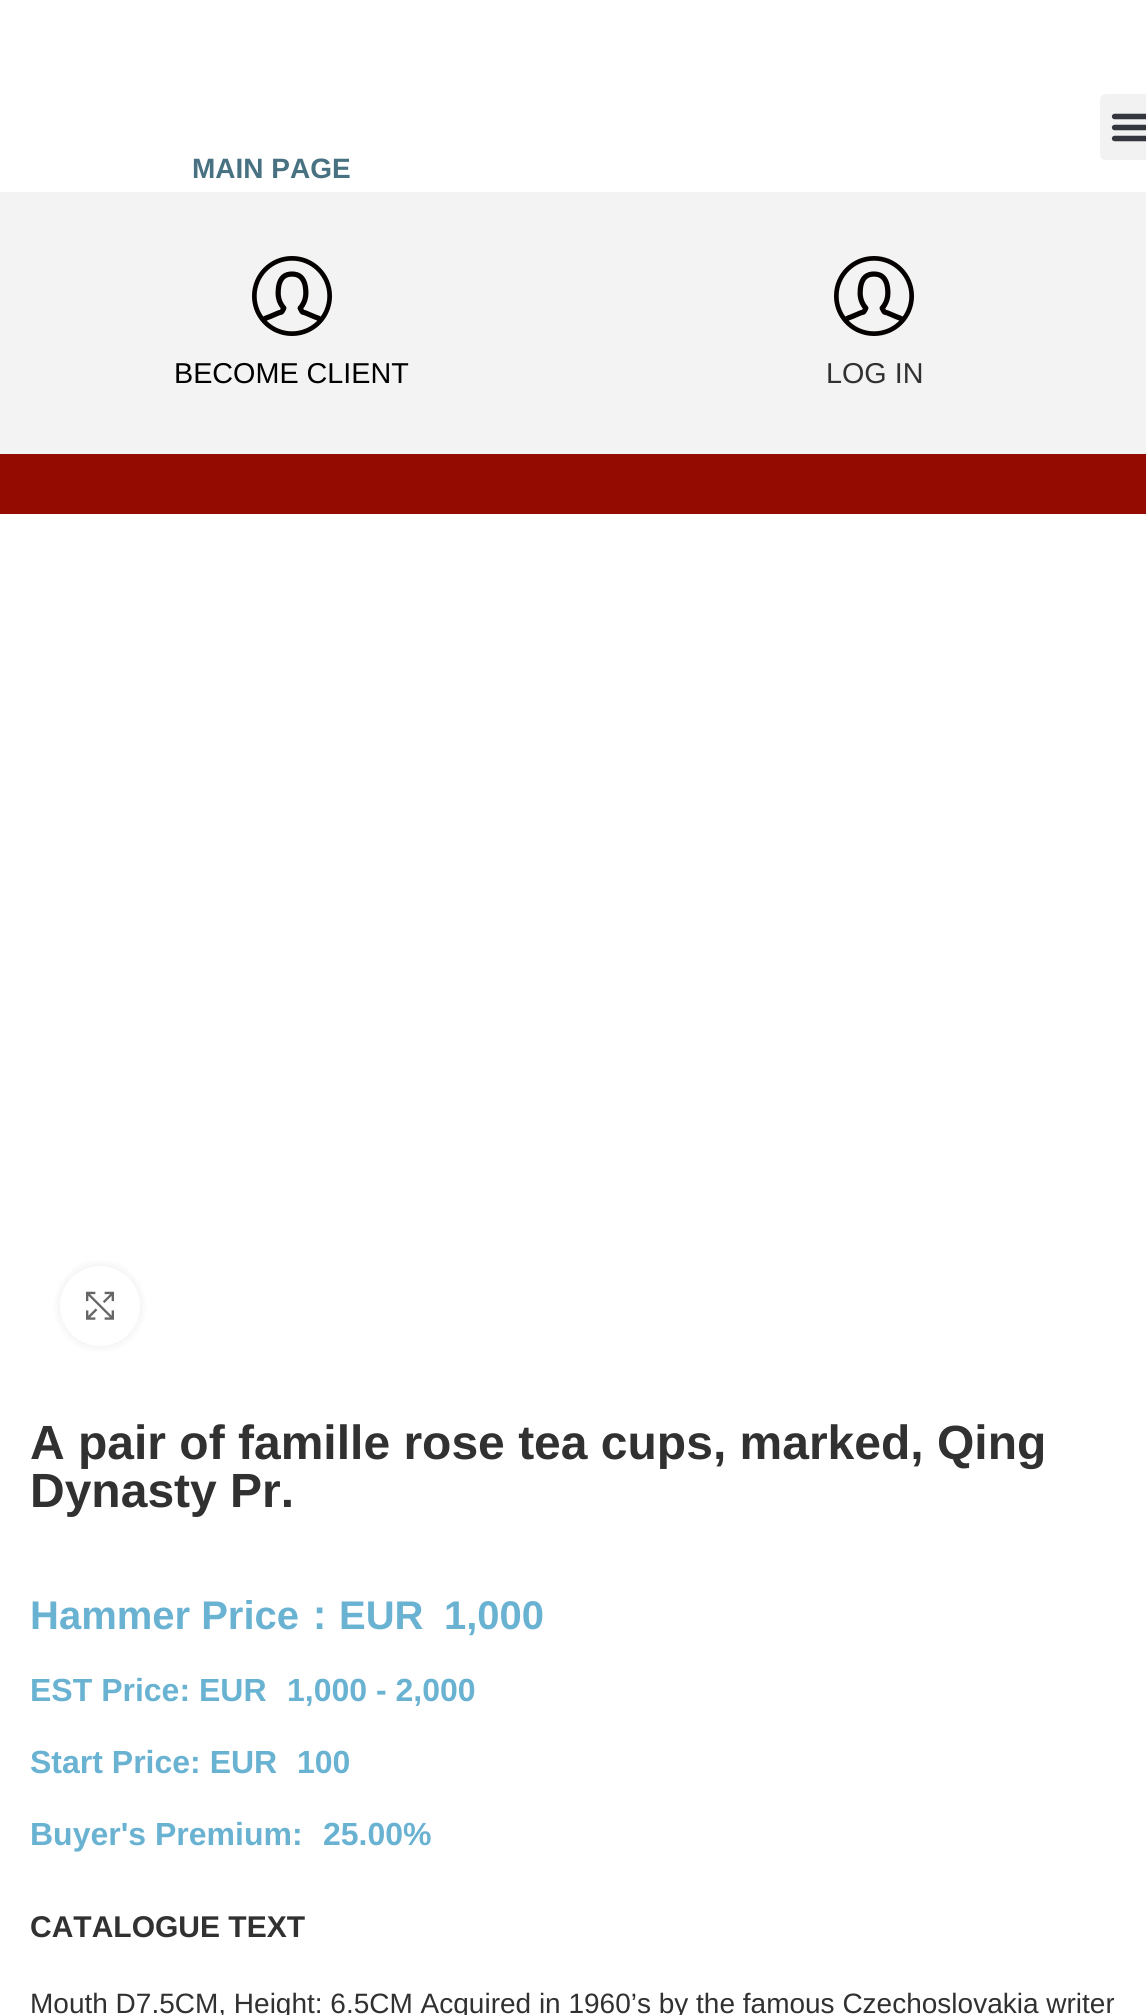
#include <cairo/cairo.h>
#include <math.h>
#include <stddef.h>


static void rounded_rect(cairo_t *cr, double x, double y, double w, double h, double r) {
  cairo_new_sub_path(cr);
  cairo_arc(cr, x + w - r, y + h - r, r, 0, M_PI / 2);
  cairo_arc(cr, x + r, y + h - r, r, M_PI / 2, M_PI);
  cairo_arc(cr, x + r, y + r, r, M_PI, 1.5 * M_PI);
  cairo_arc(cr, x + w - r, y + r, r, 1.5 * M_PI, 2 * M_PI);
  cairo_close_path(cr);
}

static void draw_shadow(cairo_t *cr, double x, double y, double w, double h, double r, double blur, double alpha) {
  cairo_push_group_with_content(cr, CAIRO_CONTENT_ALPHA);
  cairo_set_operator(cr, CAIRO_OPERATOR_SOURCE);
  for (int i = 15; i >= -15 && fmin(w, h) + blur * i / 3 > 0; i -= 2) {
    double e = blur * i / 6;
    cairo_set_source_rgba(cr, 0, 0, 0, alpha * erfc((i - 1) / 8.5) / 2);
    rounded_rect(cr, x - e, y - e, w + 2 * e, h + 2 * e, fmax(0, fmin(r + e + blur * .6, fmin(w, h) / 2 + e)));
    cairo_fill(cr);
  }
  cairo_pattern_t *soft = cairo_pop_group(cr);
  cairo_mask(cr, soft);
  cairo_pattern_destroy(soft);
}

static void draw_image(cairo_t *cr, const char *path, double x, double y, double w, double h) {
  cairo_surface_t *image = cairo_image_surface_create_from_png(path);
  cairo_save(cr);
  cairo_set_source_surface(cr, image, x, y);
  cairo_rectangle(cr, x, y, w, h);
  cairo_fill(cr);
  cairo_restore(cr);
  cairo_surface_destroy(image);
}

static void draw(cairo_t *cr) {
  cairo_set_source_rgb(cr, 1, 1, 1);
  cairo_paint(cr);
  cairo_set_source_rgb(cr, 242 / 255.0, 242 / 255.0, 242 / 255.0);
  cairo_new_path(cr);
  cairo_move_to(cr, 1106, 94);
  cairo_line_to(cr, 1146, 94);
  cairo_line_to(cr, 1146, 160);
  cairo_line_to(cr, 1106, 160);
  cairo_curve_to(cr, 1102.5, 160, 1100, 157.5, 1100, 154);
  cairo_line_to(cr, 1100, 100);
  cairo_curve_to(cr, 1100, 96.5, 1102.5, 94, 1106, 94);
  cairo_close_path(cr);
  cairo_fill(cr);
  draw_image(cr, "images/1.png", 1111, 113, 35, 29);
  cairo_set_source_rgb(cr, 244 / 255.0, 243 / 255.0, 243 / 255.0);
  cairo_rectangle(cr, 0, 192, 1146, 262);
  cairo_fill(cr);
  draw_image(cr, "images/2.png", 252, 256, 80, 80);
  draw_image(cr, "images/2.png", 834, 256, 80, 80);
  cairo_set_source_rgb(cr, 148 / 255.0, 11 / 255.0, 1 / 255.0);
  cairo_rectangle(cr, 0, 454, 1146, 60);
  cairo_fill(cr);
  cairo_set_source_rgb(cr, 0, 0, 0);
  draw_shadow(cr, 60, 1266, 80, 80, 40, 5, 0.08);
  cairo_set_source_rgb(cr, 1, 1, 1);
  cairo_arc(cr, 100, 1306, 40, 0, 2 * M_PI);
  cairo_fill(cr);
  draw_image(cr, "images/3.png", 86, 1291, 28, 29);
  cairo_select_font_face(cr, "Liberation Sans", CAIRO_FONT_SLANT_NORMAL, CAIRO_FONT_WEIGHT_BOLD);
  cairo_set_font_size(cr, 28);
  cairo_set_source_rgb(cr, 72 / 255.0, 113 / 255.0, 130 / 255.0);
  cairo_move_to(cr, 192, 178);
  cairo_show_text(cr, "MAIN PAGE");
  cairo_select_font_face(cr, "Liberation Sans", CAIRO_FONT_SLANT_NORMAL, CAIRO_FONT_WEIGHT_NORMAL);
  cairo_set_font_size(cr, 28.75);
  cairo_set_source_rgb(cr, 0, 0, 0);
  cairo_move_to(cr, 174, 383);
  cairo_show_text(cr, "BECOME CLIENT");
  cairo_set_source_rgb(cr, 49 / 255.0, 49 / 255.0, 49 / 255.0);
  cairo_move_to(cr, 826, 383);
  cairo_show_text(cr, "LOG IN");
  cairo_select_font_face(cr, "Liberation Sans", CAIRO_FONT_SLANT_NORMAL, CAIRO_FONT_WEIGHT_BOLD);
  cairo_set_font_size(cr, 48);
  cairo_move_to(cr, 30, 1459);
  cairo_show_text(cr, "A pair of famille rose tea cups, marked, Qing");
  cairo_move_to(cr, 30, 1507);
  cairo_show_text(cr, "Dynasty Pr.");
  cairo_set_font_size(cr, 40);
  cairo_set_source_rgb(cr, 105 / 255.0, 178 / 255.0, 210 / 255.0);
  cairo_move_to(cr, 30, 1629);
  cairo_show_text(cr, "Hammer Price");
  cairo_select_font_face(cr, "WenQuanYi Zen Hei", CAIRO_FONT_SLANT_NORMAL, CAIRO_FONT_WEIGHT_BOLD);
  cairo_move_to(cr, 299, 1629);
  cairo_show_text(cr, "：");
  cairo_select_font_face(cr, "Liberation Sans", CAIRO_FONT_SLANT_NORMAL, CAIRO_FONT_WEIGHT_BOLD);
  cairo_move_to(cr, 339, 1629);
  cairo_show_text(cr, "EUR");
  cairo_move_to(cr, 444, 1629);
  cairo_show_text(cr, "1,000");
  cairo_set_font_size(cr, 32);
  cairo_move_to(cr, 30, 1701);
  cairo_show_text(cr, "EST Price: EUR");
  cairo_move_to(cr, 287, 1701);
  cairo_show_text(cr, "1,000 - 2,000");
  cairo_move_to(cr, 30, 1773);
  cairo_show_text(cr, "Start Price: EUR");
  cairo_move_to(cr, 297, 1773);
  cairo_show_text(cr, "100");
  cairo_move_to(cr, 30, 1845);
  cairo_show_text(cr, "Buyer's Premium:");
  cairo_move_to(cr, 323, 1845);
  cairo_show_text(cr, "25.00%");
  cairo_set_font_size(cr, 30);
  cairo_set_source_rgb(cr, 49 / 255.0, 49 / 255.0, 49 / 255.0);
  cairo_move_to(cr, 30, 1937);
  cairo_show_text(cr, "CATALOGUE TEXT");
  cairo_select_font_face(cr, "Liberation Sans", CAIRO_FONT_SLANT_NORMAL, CAIRO_FONT_WEIGHT_NORMAL);
  cairo_set_font_size(cr, 28);
  cairo_move_to(cr, 30, 2013);
  cairo_show_text(cr, "Mouth D7.5CM, Height: 6.5CM Acquired in 1960’s by the famous Czechoslovakia writer");
}

int main(void) {
  cairo_surface_t *surface = cairo_image_surface_create(CAIRO_FORMAT_RGB24, 1146, 2015);
  cairo_t *cr = cairo_create(surface);
  cairo_font_options_t *options = cairo_font_options_create();
  cairo_font_options_set_hint_metrics(options, CAIRO_HINT_METRICS_OFF);
  cairo_font_options_set_hint_style(options, CAIRO_HINT_STYLE_NONE);
  cairo_set_font_options(cr, options);
  cairo_set_miter_limit(cr, 4);
  draw(cr);
  cairo_surface_write_to_png(surface, "out.png");
  cairo_font_options_destroy(options);
  cairo_destroy(cr);
  cairo_surface_destroy(surface);
  return 0;
}
